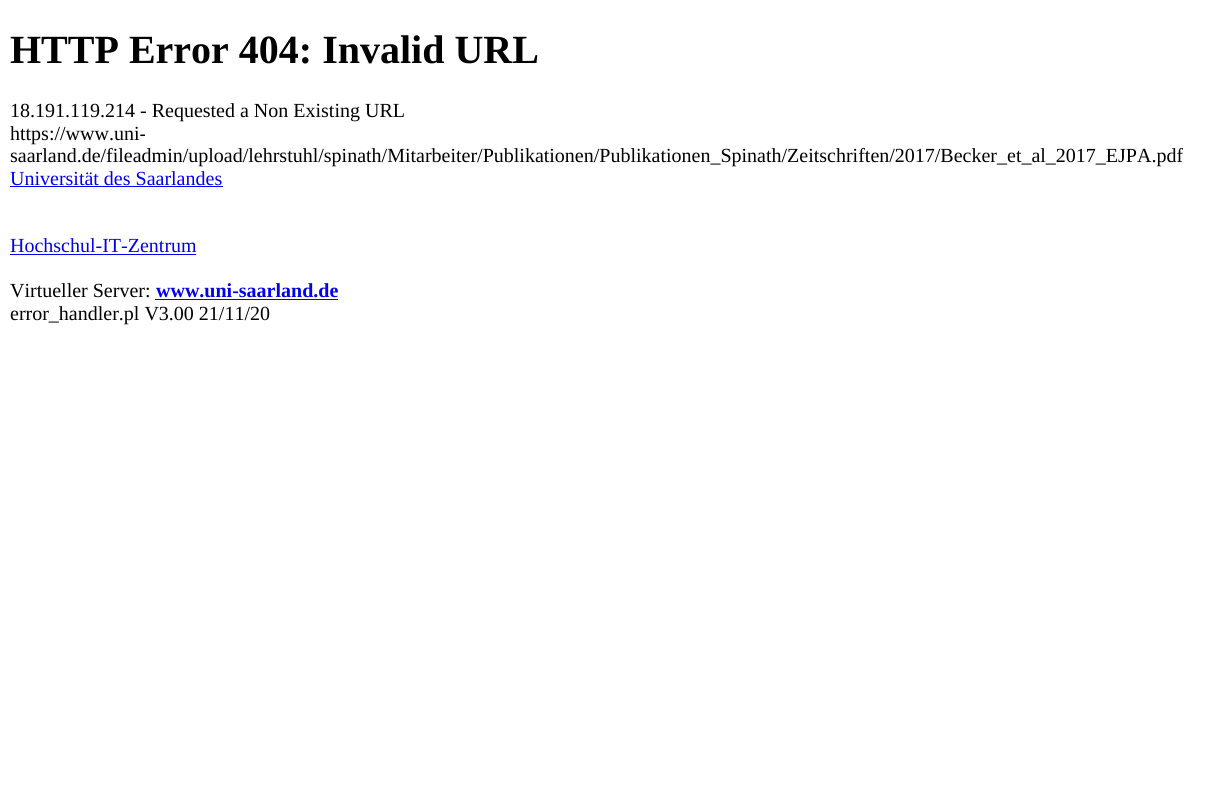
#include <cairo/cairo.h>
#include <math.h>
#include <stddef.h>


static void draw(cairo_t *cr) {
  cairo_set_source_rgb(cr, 1, 1, 1);
  cairo_paint(cr);
  cairo_set_source_rgb(cr, 0, 0, 238 / 255.0);
  cairo_rectangle(cr, 10, 186, 213, 1);
  cairo_fill(cr);
  cairo_rectangle(cr, 10, 254, 186, 1);
  cairo_fill(cr);
  cairo_rectangle(cr, 155, 299, 183, 1);
  cairo_fill(cr);
  cairo_select_font_face(cr, "Liberation Serif", CAIRO_FONT_SLANT_NORMAL, CAIRO_FONT_WEIGHT_BOLD);
  cairo_set_font_size(cr, 40);
  cairo_set_source_rgb(cr, 0, 0, 0);
  cairo_move_to(cr, 10, 63);
  cairo_show_text(cr, "HTTP Error 404: Invalid URL");
  cairo_select_font_face(cr, "Liberation Serif", CAIRO_FONT_SLANT_NORMAL, CAIRO_FONT_WEIGHT_NORMAL);
  cairo_set_font_size(cr, 20);
  cairo_move_to(cr, 10, 117);
  cairo_show_text(cr, "18.191.119.214 - Requested a Non Existing URL");
  cairo_move_to(cr, 10, 140);
  cairo_show_text(cr, "https://www.uni-");
  cairo_move_to(cr, 10, 162);
  cairo_show_text(cr, "saarland.de/fileadmin/upload/lehrstuhl/spinath/Mitarbeiter/Publikationen/Publikationen_Spinath/Zeitschriften/2017/Becker_et_al_2017_EJPA.pdf");
  cairo_set_source_rgb(cr, 0, 0, 238 / 255.0);
  cairo_move_to(cr, 10, 185);
  cairo_show_text(cr, "Universität des Saarlandes");
  cairo_move_to(cr, 10, 252);
  cairo_show_text(cr, "Hochschul-IT-Zentrum");
  cairo_set_source_rgb(cr, 0, 0, 0);
  cairo_move_to(cr, 10, 297);
  cairo_show_text(cr, "Virtueller Server:");
  cairo_select_font_face(cr, "Liberation Serif", CAIRO_FONT_SLANT_NORMAL, CAIRO_FONT_WEIGHT_BOLD);
  cairo_set_source_rgb(cr, 0, 0, 238 / 255.0);
  cairo_move_to(cr, 156, 297);
  cairo_show_text(cr, "www.uni-saarland.de");
  cairo_select_font_face(cr, "Liberation Serif", CAIRO_FONT_SLANT_NORMAL, CAIRO_FONT_WEIGHT_NORMAL);
  cairo_set_source_rgb(cr, 0, 0, 0);
  cairo_move_to(cr, 10, 320);
  cairo_show_text(cr, "error_handler.pl V3.00 21/11/20");
}

int main(void) {
  cairo_surface_t *surface = cairo_image_surface_create(CAIRO_FORMAT_RGB24, 1211, 787);
  cairo_t *cr = cairo_create(surface);
  cairo_font_options_t *options = cairo_font_options_create();
  cairo_font_options_set_hint_metrics(options, CAIRO_HINT_METRICS_OFF);
  cairo_font_options_set_hint_style(options, CAIRO_HINT_STYLE_NONE);
  cairo_set_font_options(cr, options);
  cairo_set_miter_limit(cr, 4);
  draw(cr);
  cairo_surface_write_to_png(surface, "out.png");
  cairo_font_options_destroy(options);
  cairo_destroy(cr);
  cairo_surface_destroy(surface);
  return 0;
}
